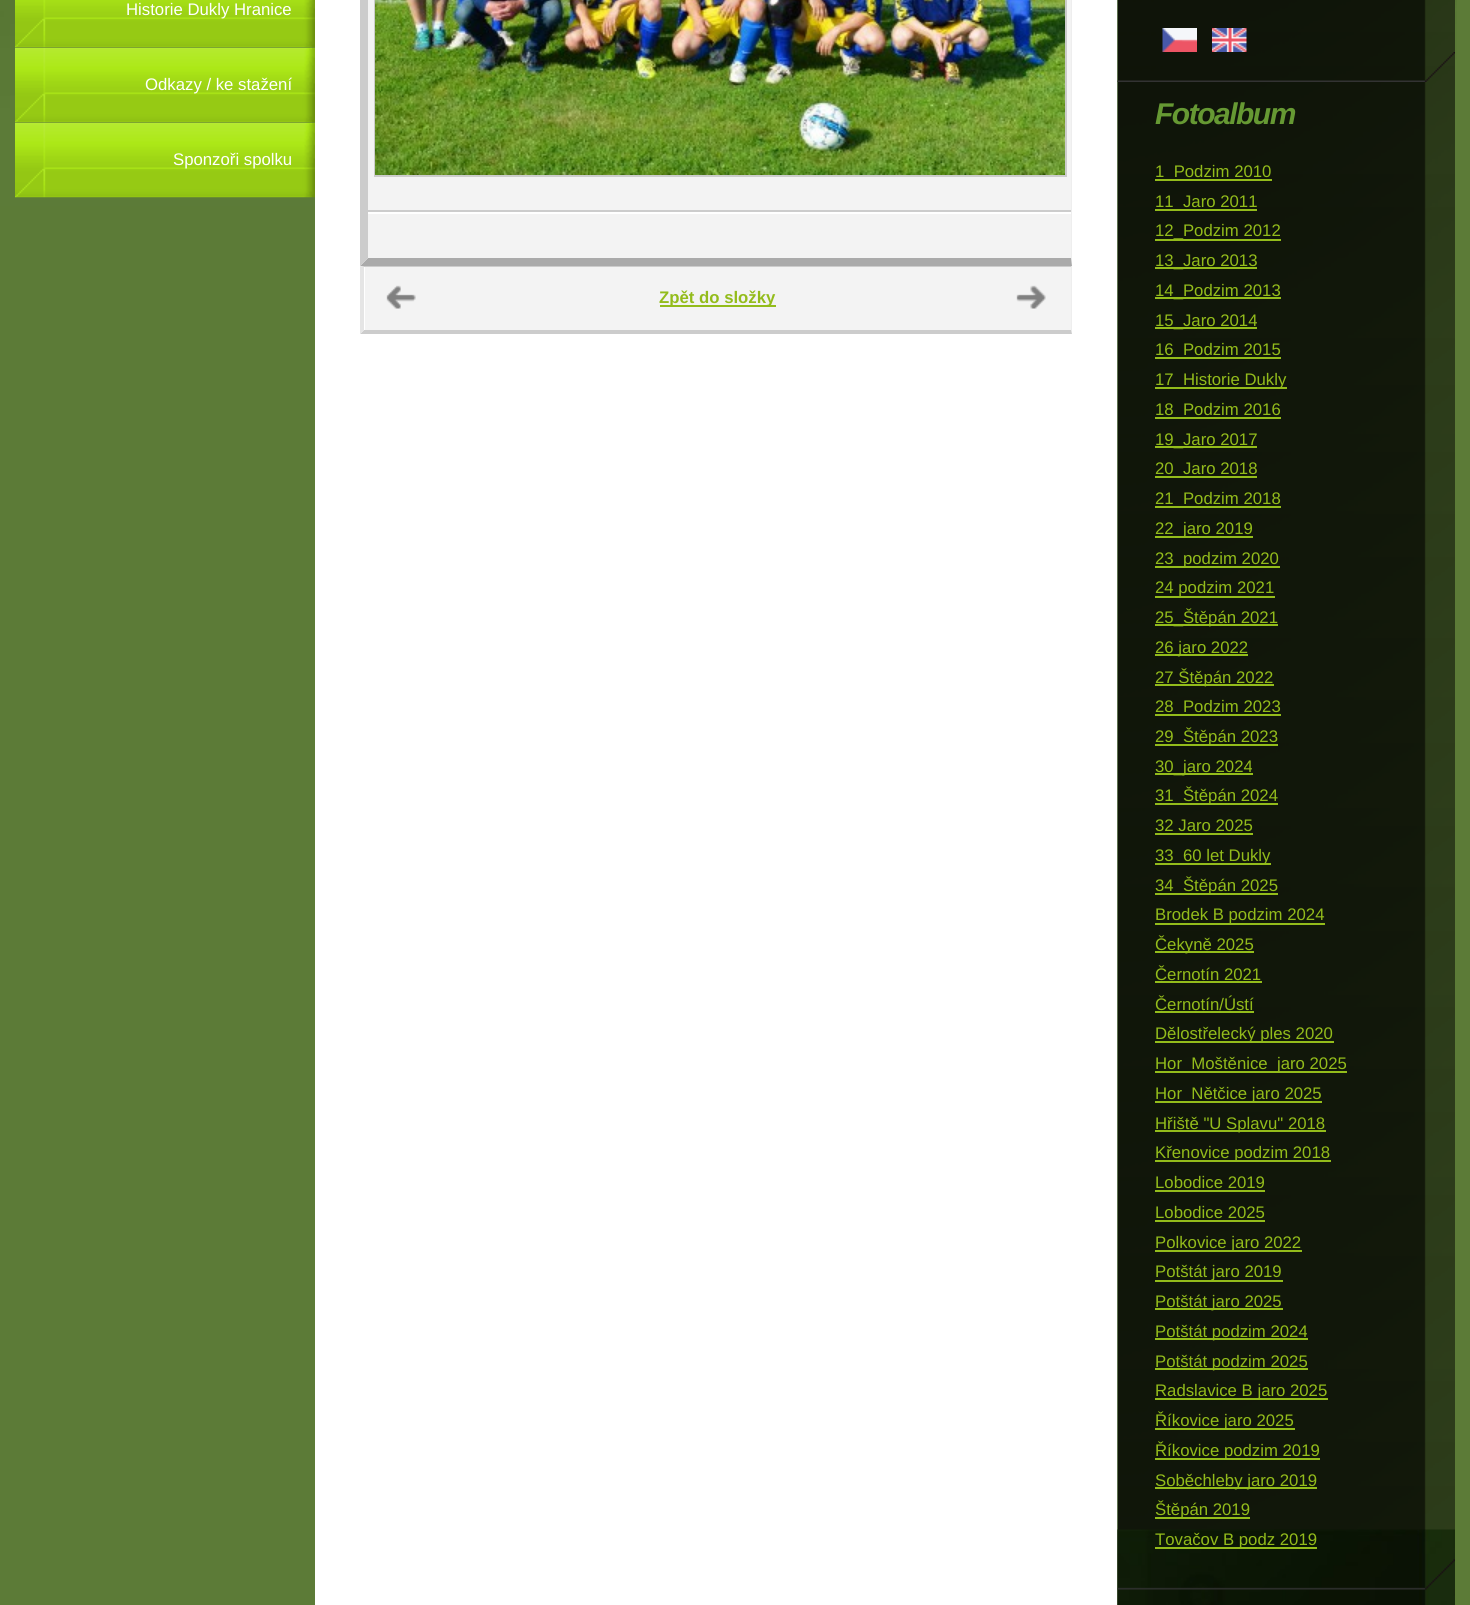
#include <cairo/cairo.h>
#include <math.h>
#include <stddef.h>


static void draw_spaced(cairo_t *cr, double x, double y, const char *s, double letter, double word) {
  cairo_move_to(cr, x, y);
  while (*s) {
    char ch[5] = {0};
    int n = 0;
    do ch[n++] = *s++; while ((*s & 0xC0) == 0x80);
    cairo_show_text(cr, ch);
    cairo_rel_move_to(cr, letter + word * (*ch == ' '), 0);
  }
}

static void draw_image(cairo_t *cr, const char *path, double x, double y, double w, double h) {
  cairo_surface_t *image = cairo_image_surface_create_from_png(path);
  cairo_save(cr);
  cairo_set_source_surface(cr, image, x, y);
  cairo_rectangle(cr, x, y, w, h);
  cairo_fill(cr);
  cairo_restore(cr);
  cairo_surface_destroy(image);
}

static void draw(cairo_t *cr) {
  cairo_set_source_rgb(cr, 92 / 255.0, 123 / 255.0, 55 / 255.0);
  cairo_paint(cr);
  draw_image(cr, "images/1.png", 0, 0, 1457, 206);
  draw_image(cr, "images/2.png", 315, 0, 803, 1605);
  draw_image(cr, "images/3.png", 15, 0, 300, 48);
  draw_image(cr, "images/4.png", 15, 47, 300, 76);
  draw_image(cr, "images/5.png", 15, 122, 300, 76);
  cairo_set_source_rgb(cr, 243 / 255.0, 243 / 255.0, 243 / 255.0);
  cairo_rectangle(cr, 368, 0, 703, 258);
  cairo_fill(cr);
  cairo_set_source_rgb(cr, 238 / 255.0, 238 / 255.0, 238 / 255.0);
  cairo_new_path(cr);
  cairo_move_to(cr, 1072, -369);
  cairo_line_to(cr, 1072, 266);
  cairo_line_to(cr, 1071, 258);
  cairo_line_to(cr, 1071, -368);
  cairo_close_path(cr);
  cairo_fill(cr);
  cairo_set_source_rgb(cr, 170 / 255.0, 170 / 255.0, 170 / 255.0);
  cairo_new_path(cr);
  cairo_move_to(cr, 1072, 266);
  cairo_line_to(cr, 360, 266);
  cairo_line_to(cr, 368, 258);
  cairo_line_to(cr, 1071, 258);
  cairo_close_path(cr);
  cairo_fill(cr);
  cairo_set_source_rgb(cr, 204 / 255.0, 204 / 255.0, 204 / 255.0);
  cairo_new_path(cr);
  cairo_move_to(cr, 360, 266);
  cairo_line_to(cr, 360, -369);
  cairo_line_to(cr, 368, -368);
  cairo_line_to(cr, 368, 258);
  cairo_close_path(cr);
  cairo_fill(cr);
  cairo_rectangle(cr, 368, 210, 703, 2);
  cairo_fill(cr);
  cairo_rectangle(cr, 375, -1, 691, 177);
  cairo_stroke(cr);
  draw_image(cr, "images/6.png", 375, 0, 690, 175);
  cairo_set_source_rgb(cr, 1, 1, 1);
  cairo_rectangle(cr, 368, 212, 703, 2);
  cairo_fill(cr);
  cairo_set_source_rgb(cr, 243 / 255.0, 243 / 255.0, 243 / 255.0);
  cairo_rectangle(cr, 365, 267, 706, 63);
  cairo_fill(cr);
  cairo_set_source_rgb(cr, 204 / 255.0, 204 / 255.0, 204 / 255.0);
  cairo_new_path(cr);
  cairo_move_to(cr, 360, 266);
  cairo_line_to(cr, 1072, 266);
  cairo_line_to(cr, 1071, 267);
  cairo_line_to(cr, 364, 267);
  cairo_close_path(cr);
  cairo_fill(cr);
  cairo_set_source_rgb(cr, 238 / 255.0, 238 / 255.0, 238 / 255.0);
  cairo_new_path(cr);
  cairo_move_to(cr, 1072, 266);
  cairo_line_to(cr, 1072, 334);
  cairo_line_to(cr, 1071, 330);
  cairo_line_to(cr, 1071, 267);
  cairo_close_path(cr);
  cairo_fill(cr);
  cairo_set_source_rgb(cr, 204 / 255.0, 204 / 255.0, 204 / 255.0);
  cairo_new_path(cr);
  cairo_move_to(cr, 1072, 334);
  cairo_line_to(cr, 360, 334);
  cairo_line_to(cr, 364, 330);
  cairo_line_to(cr, 1071, 330);
  cairo_close_path(cr);
  cairo_fill(cr);
  cairo_set_source_rgb(cr, 229 / 255.0, 229 / 255.0, 229 / 255.0);
  cairo_new_path(cr);
  cairo_move_to(cr, 360, 334);
  cairo_line_to(cr, 360, 266);
  cairo_line_to(cr, 364, 267);
  cairo_line_to(cr, 364, 330);
  cairo_close_path(cr);
  cairo_fill(cr);
  draw_image(cr, "images/7.png", 386, 285, 30, 24);
  cairo_set_source_rgb(cr, 147 / 255.0, 188 / 255.0, 27 / 255.0);
  cairo_rectangle(cr, 660, 305, 116, 2);
  cairo_fill(cr);
  draw_image(cr, "images/8.png", 1016, 285, 30, 24);
  draw_image(cr, "images/9.png", 1117, 0, 338, 1605);
  draw_image(cr, "images/10.png", 1117, 1529, 338, 76);
  draw_image(cr, "images/11.png", 1117, 52, 338, 30);
  draw_image(cr, "images/12.png", 1162, 28, 35, 24);
  draw_image(cr, "images/13.png", 1212, 28, 35, 24);
  draw_image(cr, "images/14.png", 1117, 1559, 338, 31);
  cairo_rectangle(cr, 1155, 179, 117, 2);
  cairo_fill(cr);
  cairo_rectangle(cr, 1155, 209, 102, 2);
  cairo_fill(cr);
  cairo_rectangle(cr, 1155, 239, 126, 2);
  cairo_fill(cr);
  cairo_rectangle(cr, 1155, 267, 102, 2);
  cairo_fill(cr);
  cairo_rectangle(cr, 1155, 297, 126, 2);
  cairo_fill(cr);
  cairo_rectangle(cr, 1155, 327, 102, 2);
  cairo_fill(cr);
  cairo_rectangle(cr, 1155, 357, 126, 2);
  cairo_fill(cr);
  cairo_rectangle(cr, 1155, 387, 132, 2);
  cairo_fill(cr);
  cairo_rectangle(cr, 1155, 417, 126, 2);
  cairo_fill(cr);
  cairo_rectangle(cr, 1155, 446, 102, 2);
  cairo_fill(cr);
  cairo_rectangle(cr, 1155, 476, 102, 2);
  cairo_fill(cr);
  cairo_rectangle(cr, 1155, 506, 126, 2);
  cairo_fill(cr);
  cairo_rectangle(cr, 1155, 536, 98, 2);
  cairo_fill(cr);
  cairo_rectangle(cr, 1155, 566, 125, 2);
  cairo_fill(cr);
  cairo_rectangle(cr, 1155, 596, 120, 2);
  cairo_fill(cr);
  cairo_rectangle(cr, 1155, 624, 123, 2);
  cairo_fill(cr);
  cairo_rectangle(cr, 1155, 654, 93, 2);
  cairo_fill(cr);
  cairo_rectangle(cr, 1155, 684, 119, 2);
  cairo_fill(cr);
  cairo_rectangle(cr, 1155, 714, 126, 2);
  cairo_fill(cr);
  cairo_rectangle(cr, 1155, 744, 123, 2);
  cairo_fill(cr);
  cairo_rectangle(cr, 1155, 773, 98, 2);
  cairo_fill(cr);
  cairo_rectangle(cr, 1155, 803, 123, 2);
  cairo_fill(cr);
  cairo_rectangle(cr, 1155, 833, 98, 2);
  cairo_fill(cr);
  cairo_rectangle(cr, 1155, 863, 116, 2);
  cairo_fill(cr);
  cairo_rectangle(cr, 1155, 893, 123, 2);
  cairo_fill(cr);
  cairo_rectangle(cr, 1155, 923, 170, 2);
  cairo_fill(cr);
  cairo_rectangle(cr, 1155, 951, 99, 2);
  cairo_fill(cr);
  cairo_rectangle(cr, 1155, 981, 107, 2);
  cairo_fill(cr);
  cairo_rectangle(cr, 1155, 1011, 99, 2);
  cairo_fill(cr);
  cairo_rectangle(cr, 1155, 1041, 179, 2);
  cairo_fill(cr);
  cairo_rectangle(cr, 1155, 1071, 192, 2);
  cairo_fill(cr);
  cairo_rectangle(cr, 1155, 1101, 167, 2);
  cairo_fill(cr);
  cairo_rectangle(cr, 1155, 1130, 171, 2);
  cairo_fill(cr);
  cairo_rectangle(cr, 1155, 1160, 176, 2);
  cairo_fill(cr);
  cairo_rectangle(cr, 1155, 1190, 110, 2);
  cairo_fill(cr);
  cairo_rectangle(cr, 1155, 1220, 110, 2);
  cairo_fill(cr);
  cairo_rectangle(cr, 1155, 1250, 147, 2);
  cairo_fill(cr);
  cairo_rectangle(cr, 1155, 1280, 128, 2);
  cairo_fill(cr);
  cairo_rectangle(cr, 1155, 1308, 128, 2);
  cairo_fill(cr);
  cairo_rectangle(cr, 1155, 1338, 153, 2);
  cairo_fill(cr);
  cairo_rectangle(cr, 1155, 1368, 153, 2);
  cairo_fill(cr);
  cairo_rectangle(cr, 1155, 1398, 173, 2);
  cairo_fill(cr);
  cairo_rectangle(cr, 1155, 1428, 140, 2);
  cairo_fill(cr);
  cairo_rectangle(cr, 1155, 1458, 165, 2);
  cairo_fill(cr);
  cairo_rectangle(cr, 1155, 1487, 162, 2);
  cairo_fill(cr);
  cairo_rectangle(cr, 1155, 1517, 95, 2);
  cairo_fill(cr);
  cairo_rectangle(cr, 1155, 1547, 162, 2);
  cairo_fill(cr);
  cairo_select_font_face(cr, "Liberation Sans", CAIRO_FONT_SLANT_NORMAL, CAIRO_FONT_WEIGHT_NORMAL);
  cairo_set_font_size(cr, 16.75);
  cairo_set_source_rgb(cr, 1, 1, 1);
  cairo_move_to(cr, 126, 15);
  cairo_show_text(cr, "Historie Dukly Hranice");
  cairo_move_to(cr, 145, 90);
  cairo_show_text(cr, "Odkazy / ke stažení");
  cairo_move_to(cr, 173, 165);
  cairo_show_text(cr, "Sponzoři spolku");
  cairo_select_font_face(cr, "Liberation Sans", CAIRO_FONT_SLANT_NORMAL, CAIRO_FONT_WEIGHT_BOLD);
  cairo_set_source_rgb(cr, 147 / 255.0, 188 / 255.0, 27 / 255.0);
  cairo_move_to(cr, 659, 303);
  cairo_show_text(cr, "Zpět do složky");
  cairo_select_font_face(cr, "Liberation Sans", CAIRO_FONT_SLANT_ITALIC, CAIRO_FONT_WEIGHT_BOLD);
  cairo_set_font_size(cr, 30);
  cairo_set_source_rgb(cr, 102 / 255.0, 153 / 255.0, 51 / 255.0);
  draw_spaced(cr, 1155, 124, "Fotoalbum", -1.5, 0);
  cairo_select_font_face(cr, "Liberation Sans", CAIRO_FONT_SLANT_NORMAL, CAIRO_FONT_WEIGHT_NORMAL);
  cairo_set_font_size(cr, 16.75);
  cairo_set_source_rgb(cr, 147 / 255.0, 188 / 255.0, 27 / 255.0);
  cairo_move_to(cr, 1155, 177);
  cairo_show_text(cr, "1_Podzim 2010");
  cairo_move_to(cr, 1155, 207);
  cairo_show_text(cr, "11_Jaro 2011");
  cairo_move_to(cr, 1155, 236);
  cairo_show_text(cr, "12_Podzim 2012");
  cairo_move_to(cr, 1155, 266);
  cairo_show_text(cr, "13_Jaro 2013");
  cairo_move_to(cr, 1155, 296);
  cairo_show_text(cr, "14_Podzim 2013");
  cairo_move_to(cr, 1155, 326);
  cairo_show_text(cr, "15_Jaro 2014");
  cairo_move_to(cr, 1155, 355);
  cairo_show_text(cr, "16_Podzim 2015");
  cairo_move_to(cr, 1155, 385);
  cairo_show_text(cr, "17_Historie Dukly");
  cairo_move_to(cr, 1155, 415);
  cairo_show_text(cr, "18_Podzim 2016");
  cairo_move_to(cr, 1155, 445);
  cairo_show_text(cr, "19_Jaro 2017");
  cairo_move_to(cr, 1155, 474);
  cairo_show_text(cr, "20_Jaro 2018");
  cairo_move_to(cr, 1155, 504);
  cairo_show_text(cr, "21_Podzim 2018");
  cairo_move_to(cr, 1155, 534);
  cairo_show_text(cr, "22_jaro 2019");
  cairo_move_to(cr, 1155, 564);
  cairo_show_text(cr, "23_podzim 2020");
  cairo_move_to(cr, 1155, 593);
  cairo_show_text(cr, "24 podzim 2021");
  cairo_move_to(cr, 1155, 623);
  cairo_show_text(cr, "25_Štěpán 2021");
  cairo_move_to(cr, 1155, 653);
  cairo_show_text(cr, "26 jaro 2022");
  cairo_move_to(cr, 1155, 683);
  cairo_show_text(cr, "27 Štěpán 2022");
  cairo_move_to(cr, 1155, 712);
  cairo_show_text(cr, "28_Podzim 2023");
  cairo_move_to(cr, 1155, 742);
  cairo_show_text(cr, "29_Štěpán 2023");
  cairo_move_to(cr, 1155, 772);
  cairo_show_text(cr, "30_jaro 2024");
  cairo_move_to(cr, 1155, 801);
  cairo_show_text(cr, "31_Štěpán 2024");
  cairo_move_to(cr, 1155, 831);
  cairo_show_text(cr, "32 Jaro 2025");
  cairo_move_to(cr, 1155, 861);
  cairo_show_text(cr, "33_60 let Dukly");
  cairo_move_to(cr, 1155, 891);
  cairo_show_text(cr, "34_Štěpán 2025");
  cairo_move_to(cr, 1155, 920);
  cairo_show_text(cr, "Brodek B podzim 2024");
  cairo_move_to(cr, 1155, 950);
  cairo_show_text(cr, "Čekyně 2025");
  cairo_move_to(cr, 1155, 980);
  cairo_show_text(cr, "Černotín 2021");
  cairo_move_to(cr, 1155, 1010);
  cairo_show_text(cr, "Černotín/Ústí");
  cairo_move_to(cr, 1155, 1039);
  cairo_show_text(cr, "Dělostřelecký ples 2020");
  cairo_move_to(cr, 1155, 1069);
  cairo_show_text(cr, "Hor_Moštěnice_jaro 2025");
  cairo_move_to(cr, 1155, 1099);
  cairo_show_text(cr, "Hor_Nětčice jaro 2025");
  cairo_move_to(cr, 1155, 1129);
  cairo_show_text(cr, "Hřiště \"U Splavu\" 2018");
  cairo_move_to(cr, 1155, 1158);
  cairo_show_text(cr, "Křenovice podzim 2018");
  cairo_move_to(cr, 1155, 1188);
  cairo_show_text(cr, "Lobodice 2019");
  cairo_move_to(cr, 1155, 1218);
  cairo_show_text(cr, "Lobodice 2025");
  cairo_move_to(cr, 1155, 1248);
  cairo_show_text(cr, "Polkovice jaro 2022");
  cairo_move_to(cr, 1155, 1277);
  cairo_show_text(cr, "Potštát jaro 2019");
  cairo_move_to(cr, 1155, 1307);
  cairo_show_text(cr, "Potštát jaro 2025");
  cairo_move_to(cr, 1155, 1337);
  cairo_show_text(cr, "Potštát podzim 2024");
  cairo_move_to(cr, 1155, 1367);
  cairo_show_text(cr, "Potštát podzim 2025");
  cairo_move_to(cr, 1155, 1396);
  cairo_show_text(cr, "Radslavice B jaro 2025");
  cairo_move_to(cr, 1155, 1426);
  cairo_show_text(cr, "Říkovice jaro 2025");
  cairo_move_to(cr, 1155, 1456);
  cairo_show_text(cr, "Říkovice podzim 2019");
  cairo_move_to(cr, 1155, 1486);
  cairo_show_text(cr, "Soběchleby jaro 2019");
  cairo_move_to(cr, 1155, 1515);
  cairo_show_text(cr, "Štěpán 2019");
  cairo_move_to(cr, 1155, 1545);
  cairo_show_text(cr, "Tovačov B podz 2019");
}

int main(void) {
  cairo_surface_t *surface = cairo_image_surface_create(CAIRO_FORMAT_RGB24, 1470, 1605);
  cairo_t *cr = cairo_create(surface);
  cairo_font_options_t *options = cairo_font_options_create();
  cairo_font_options_set_hint_metrics(options, CAIRO_HINT_METRICS_OFF);
  cairo_font_options_set_hint_style(options, CAIRO_HINT_STYLE_NONE);
  cairo_set_font_options(cr, options);
  cairo_set_miter_limit(cr, 4);
  draw(cr);
  cairo_surface_write_to_png(surface, "out.png");
  cairo_font_options_destroy(options);
  cairo_destroy(cr);
  cairo_surface_destroy(surface);
  return 0;
}
